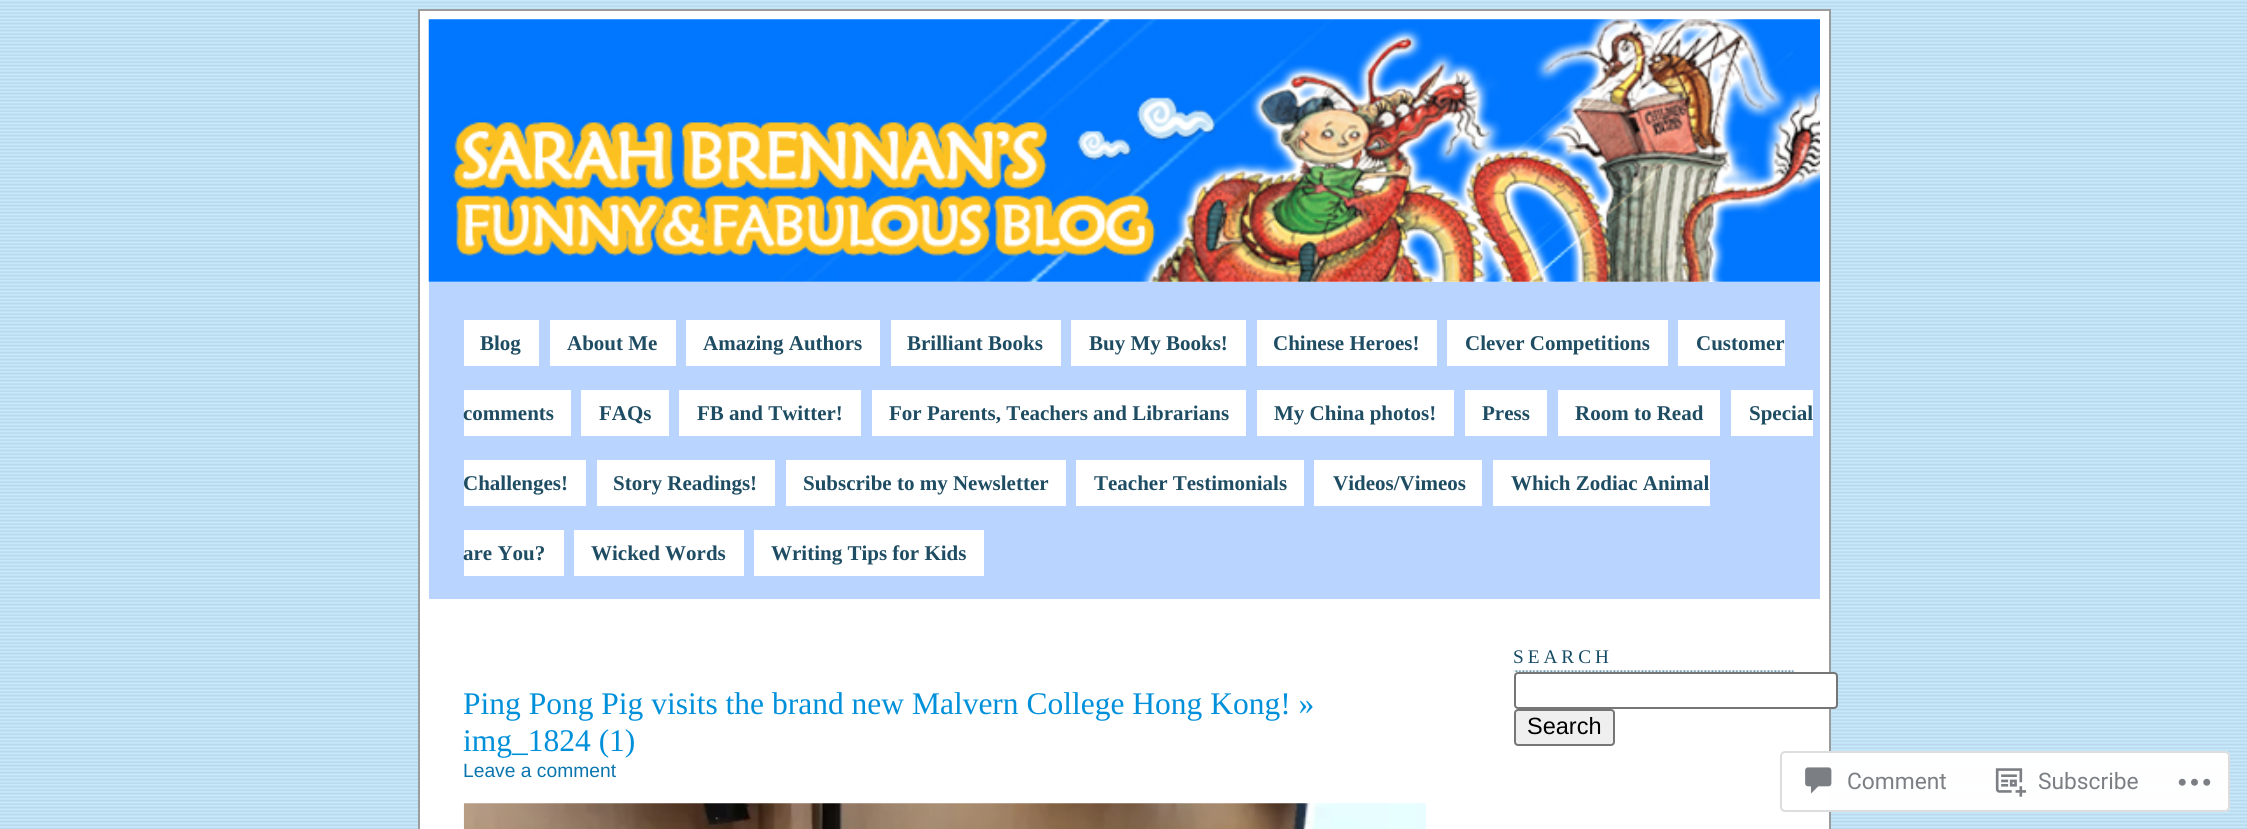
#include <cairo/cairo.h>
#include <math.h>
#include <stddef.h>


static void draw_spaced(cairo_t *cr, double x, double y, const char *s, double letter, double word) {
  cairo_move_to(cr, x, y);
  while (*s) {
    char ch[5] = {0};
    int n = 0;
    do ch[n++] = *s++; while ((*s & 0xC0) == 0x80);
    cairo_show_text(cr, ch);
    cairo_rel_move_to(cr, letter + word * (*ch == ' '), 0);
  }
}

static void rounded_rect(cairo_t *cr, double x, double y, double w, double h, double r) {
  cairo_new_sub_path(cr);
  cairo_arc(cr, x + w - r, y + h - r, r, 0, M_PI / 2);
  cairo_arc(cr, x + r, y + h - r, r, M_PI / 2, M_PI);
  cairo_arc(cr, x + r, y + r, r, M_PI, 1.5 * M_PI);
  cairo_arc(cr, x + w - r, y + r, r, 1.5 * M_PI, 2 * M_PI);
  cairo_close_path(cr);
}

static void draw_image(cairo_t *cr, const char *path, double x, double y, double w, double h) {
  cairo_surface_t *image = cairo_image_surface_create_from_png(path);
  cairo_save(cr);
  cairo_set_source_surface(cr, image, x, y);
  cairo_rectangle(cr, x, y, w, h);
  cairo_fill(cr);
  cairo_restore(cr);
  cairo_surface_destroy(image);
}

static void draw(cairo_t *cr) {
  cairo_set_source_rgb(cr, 1, 1, 1);
  cairo_paint(cr);
  draw_image(cr, "images/1.png", 0, 0, 2247, 829);
  cairo_set_source_rgb(cr, 1, 1, 1);
  cairo_rectangle(cr, 419, 10, 1411, 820);
  cairo_fill_preserve(cr);
  cairo_set_source_rgb(cr, 156 / 255.0, 156 / 255.0, 156 / 255.0);
  cairo_stroke(cr);
  draw_image(cr, "images/2.png", 428, 19, 1392, 263);
  cairo_set_source_rgb(cr, 184 / 255.0, 212 / 255.0, 1);
  cairo_rectangle(cr, 429, 282, 1391, 317);
  cairo_fill(cr);
  cairo_set_source_rgb(cr, 1, 1, 1);
  cairo_rectangle(cr, 464, 320, 75, 46);
  cairo_fill(cr);
  cairo_rectangle(cr, 550, 320, 126, 46);
  cairo_fill(cr);
  cairo_rectangle(cr, 686, 320, 194, 46);
  cairo_fill(cr);
  cairo_rectangle(cr, 891, 320, 170, 46);
  cairo_fill(cr);
  cairo_rectangle(cr, 1071, 320, 175, 46);
  cairo_fill(cr);
  cairo_rectangle(cr, 1257, 320, 180, 46);
  cairo_fill(cr);
  cairo_rectangle(cr, 1447, 320, 221, 46);
  cairo_fill(cr);
  cairo_rectangle(cr, 1678, 320, 107, 46);
  cairo_fill(cr);
  cairo_rectangle(cr, 464, 390, 107, 46);
  cairo_fill(cr);
  cairo_rectangle(cr, 581, 390, 88, 46);
  cairo_fill(cr);
  cairo_rectangle(cr, 679, 390, 182, 46);
  cairo_fill(cr);
  cairo_rectangle(cr, 872, 390, 374, 46);
  cairo_fill(cr);
  cairo_rectangle(cr, 1257, 390, 197, 46);
  cairo_fill(cr);
  cairo_rectangle(cr, 1465, 390, 82, 46);
  cairo_fill(cr);
  cairo_rectangle(cr, 1558, 390, 162, 46);
  cairo_fill(cr);
  cairo_rectangle(cr, 1731, 390, 82, 46);
  cairo_fill(cr);
  cairo_rectangle(cr, 464, 460, 122, 46);
  cairo_fill(cr);
  cairo_rectangle(cr, 597, 460, 178, 46);
  cairo_fill(cr);
  cairo_rectangle(cr, 786, 460, 280, 46);
  cairo_fill(cr);
  cairo_rectangle(cr, 1076, 460, 228, 46);
  cairo_fill(cr);
  cairo_rectangle(cr, 1314, 460, 168, 46);
  cairo_fill(cr);
  cairo_rectangle(cr, 1493, 460, 217, 46);
  cairo_fill(cr);
  cairo_rectangle(cr, 464, 530, 100, 46);
  cairo_fill(cr);
  cairo_rectangle(cr, 574, 530, 170, 46);
  cairo_fill(cr);
  cairo_rectangle(cr, 754, 530, 230, 46);
  cairo_fill(cr);
  draw_image(cr, "images/3.png", 463, 803, 963, 26);
  draw_image(cr, "images/4.png", 1513, 670, 281, 2);
  rounded_rect(cr, 1515, 673, 322, 35, 3);
  cairo_fill_preserve(cr);
  cairo_set_source_rgb(cr, 118 / 255.0, 118 / 255.0, 118 / 255.0);
  cairo_stroke(cr);
  cairo_set_source_rgb(cr, 239 / 255.0, 239 / 255.0, 239 / 255.0);
  rounded_rect(cr, 1515, 710, 99, 35, 3);
  cairo_fill_preserve(cr);
  cairo_set_source_rgb(cr, 118 / 255.0, 118 / 255.0, 118 / 255.0);
  cairo_stroke(cr);
  cairo_set_source_rgba(cr, 1, 1, 1, 0.98);
  rounded_rect(cr, 1780, 751, 450, 61, 5);
  cairo_fill(cr);
  rounded_rect(cr, 1781, 752, 448, 59, 4);
  cairo_set_source_rgba(cr, 220 / 255.0, 220 / 255.0, 222 / 255.0, 0.98);
  cairo_stroke(cr);
  draw_image(cr, "images/5.png", 1805, 767, 27, 27);
  draw_image(cr, "images/6.png", 1995, 768, 32, 29);
  draw_image(cr, "images/7.png", 2178, 778, 33, 8);
  cairo_select_font_face(cr, "Liberation Serif", CAIRO_FONT_SLANT_NORMAL, CAIRO_FONT_WEIGHT_BOLD);
  cairo_set_font_size(cr, 21);
  cairo_set_source_rgb(cr, 30 / 255.0, 76 / 255.0, 98 / 255.0);
  cairo_move_to(cr, 480, 350);
  cairo_show_text(cr, "Blog");
  cairo_move_to(cr, 567, 350);
  cairo_show_text(cr, "About Me");
  cairo_move_to(cr, 703, 350);
  cairo_show_text(cr, "Amazing Authors");
  cairo_move_to(cr, 907, 350);
  cairo_show_text(cr, "Brilliant Books");
  cairo_move_to(cr, 1089, 350);
  cairo_show_text(cr, "Buy My Books!");
  cairo_move_to(cr, 1273, 350);
  cairo_show_text(cr, "Chinese Heroes!");
  cairo_move_to(cr, 1465, 350);
  cairo_show_text(cr, "Clever Competitions");
  cairo_move_to(cr, 1696, 350);
  cairo_show_text(cr, "Customer");
  cairo_move_to(cr, 463, 420);
  cairo_show_text(cr, "comments");
  cairo_move_to(cr, 599, 420);
  cairo_show_text(cr, "FAQs");
  cairo_move_to(cr, 697, 420);
  cairo_show_text(cr, "FB and Twitter!");
  cairo_move_to(cr, 889, 420);
  cairo_show_text(cr, "For Parents, Teachers and Librarians");
  cairo_move_to(cr, 1274, 420);
  cairo_show_text(cr, "My China photos!");
  cairo_move_to(cr, 1482, 420);
  cairo_show_text(cr, "Press");
  cairo_move_to(cr, 1575, 420);
  cairo_show_text(cr, "Room to Read");
  cairo_move_to(cr, 1749, 420);
  cairo_show_text(cr, "Special");
  cairo_move_to(cr, 463, 490);
  cairo_show_text(cr, "Challenges!");
  cairo_move_to(cr, 613, 490);
  cairo_show_text(cr, "Story Readings!");
  cairo_move_to(cr, 803, 490);
  cairo_show_text(cr, "Subscribe to my Newsletter");
  cairo_move_to(cr, 1094, 490);
  cairo_show_text(cr, "Teacher Testimonials");
  cairo_move_to(cr, 1333, 490);
  cairo_show_text(cr, "Videos/Vimeos");
  cairo_move_to(cr, 1511, 490);
  cairo_show_text(cr, "Which Zodiac Animal");
  cairo_move_to(cr, 463, 560);
  cairo_show_text(cr, "are You?");
  cairo_move_to(cr, 591, 560);
  cairo_show_text(cr, "Wicked Words");
  cairo_move_to(cr, 771, 560);
  cairo_show_text(cr, "Writing Tips for Kids");
  cairo_select_font_face(cr, "Liberation Serif", CAIRO_FONT_SLANT_NORMAL, CAIRO_FONT_WEIGHT_NORMAL);
  cairo_set_font_size(cr, 31.5);
  cairo_set_source_rgb(cr, 0, 144 / 255.0, 218 / 255.0);
  cairo_move_to(cr, 463, 714);
  cairo_show_text(cr, "Ping Pong Pig visits the brand new Malvern College Hong Kong! »");
  cairo_move_to(cr, 463, 751);
  cairo_show_text(cr, "img_1824 (1)");
  cairo_select_font_face(cr, "Liberation Sans", CAIRO_FONT_SLANT_NORMAL, CAIRO_FONT_WEIGHT_NORMAL);
  cairo_set_font_size(cr, 19.25);
  cairo_set_source_rgb(cr, 11 / 255.0, 118 / 255.0, 174 / 255.0);
  cairo_move_to(cr, 463, 777);
  cairo_show_text(cr, "Leave a comment");
  cairo_select_font_face(cr, "Liberation Serif", CAIRO_FONT_SLANT_NORMAL, CAIRO_FONT_WEIGHT_NORMAL);
  cairo_set_source_rgb(cr, 23 / 255.0, 75 / 255.0, 101 / 255.0);
  draw_spaced(cr, 1513, 663, "SEARCH", 4, 0);
  cairo_select_font_face(cr, "Liberation Sans", CAIRO_FONT_SLANT_NORMAL, CAIRO_FONT_WEIGHT_NORMAL);
  cairo_set_font_size(cr, 23.5);
  cairo_set_source_rgb(cr, 0, 0, 0);
  cairo_move_to(cr, 1527, 734);
  cairo_show_text(cr, "Search");
  cairo_select_font_face(cr, "Roboto", CAIRO_FONT_SLANT_NORMAL, CAIRO_FONT_WEIGHT_NORMAL);
  cairo_set_font_size(cr, 22.75);
  cairo_set_source_rgb(cr, 123 / 255.0, 127 / 255.0, 132 / 255.0);
  cairo_move_to(cr, 1847, 789);
  cairo_show_text(cr, "Comment");
  cairo_move_to(cr, 2038, 789);
  cairo_show_text(cr, "Subscribe");
}

int main(void) {
  cairo_surface_t *surface = cairo_image_surface_create(CAIRO_FORMAT_RGB24, 2247, 829);
  cairo_t *cr = cairo_create(surface);
  cairo_font_options_t *options = cairo_font_options_create();
  cairo_font_options_set_hint_metrics(options, CAIRO_HINT_METRICS_OFF);
  cairo_font_options_set_hint_style(options, CAIRO_HINT_STYLE_NONE);
  cairo_set_font_options(cr, options);
  cairo_set_miter_limit(cr, 4);
  draw(cr);
  cairo_surface_write_to_png(surface, "out.png");
  cairo_font_options_destroy(options);
  cairo_destroy(cr);
  cairo_surface_destroy(surface);
  return 0;
}
